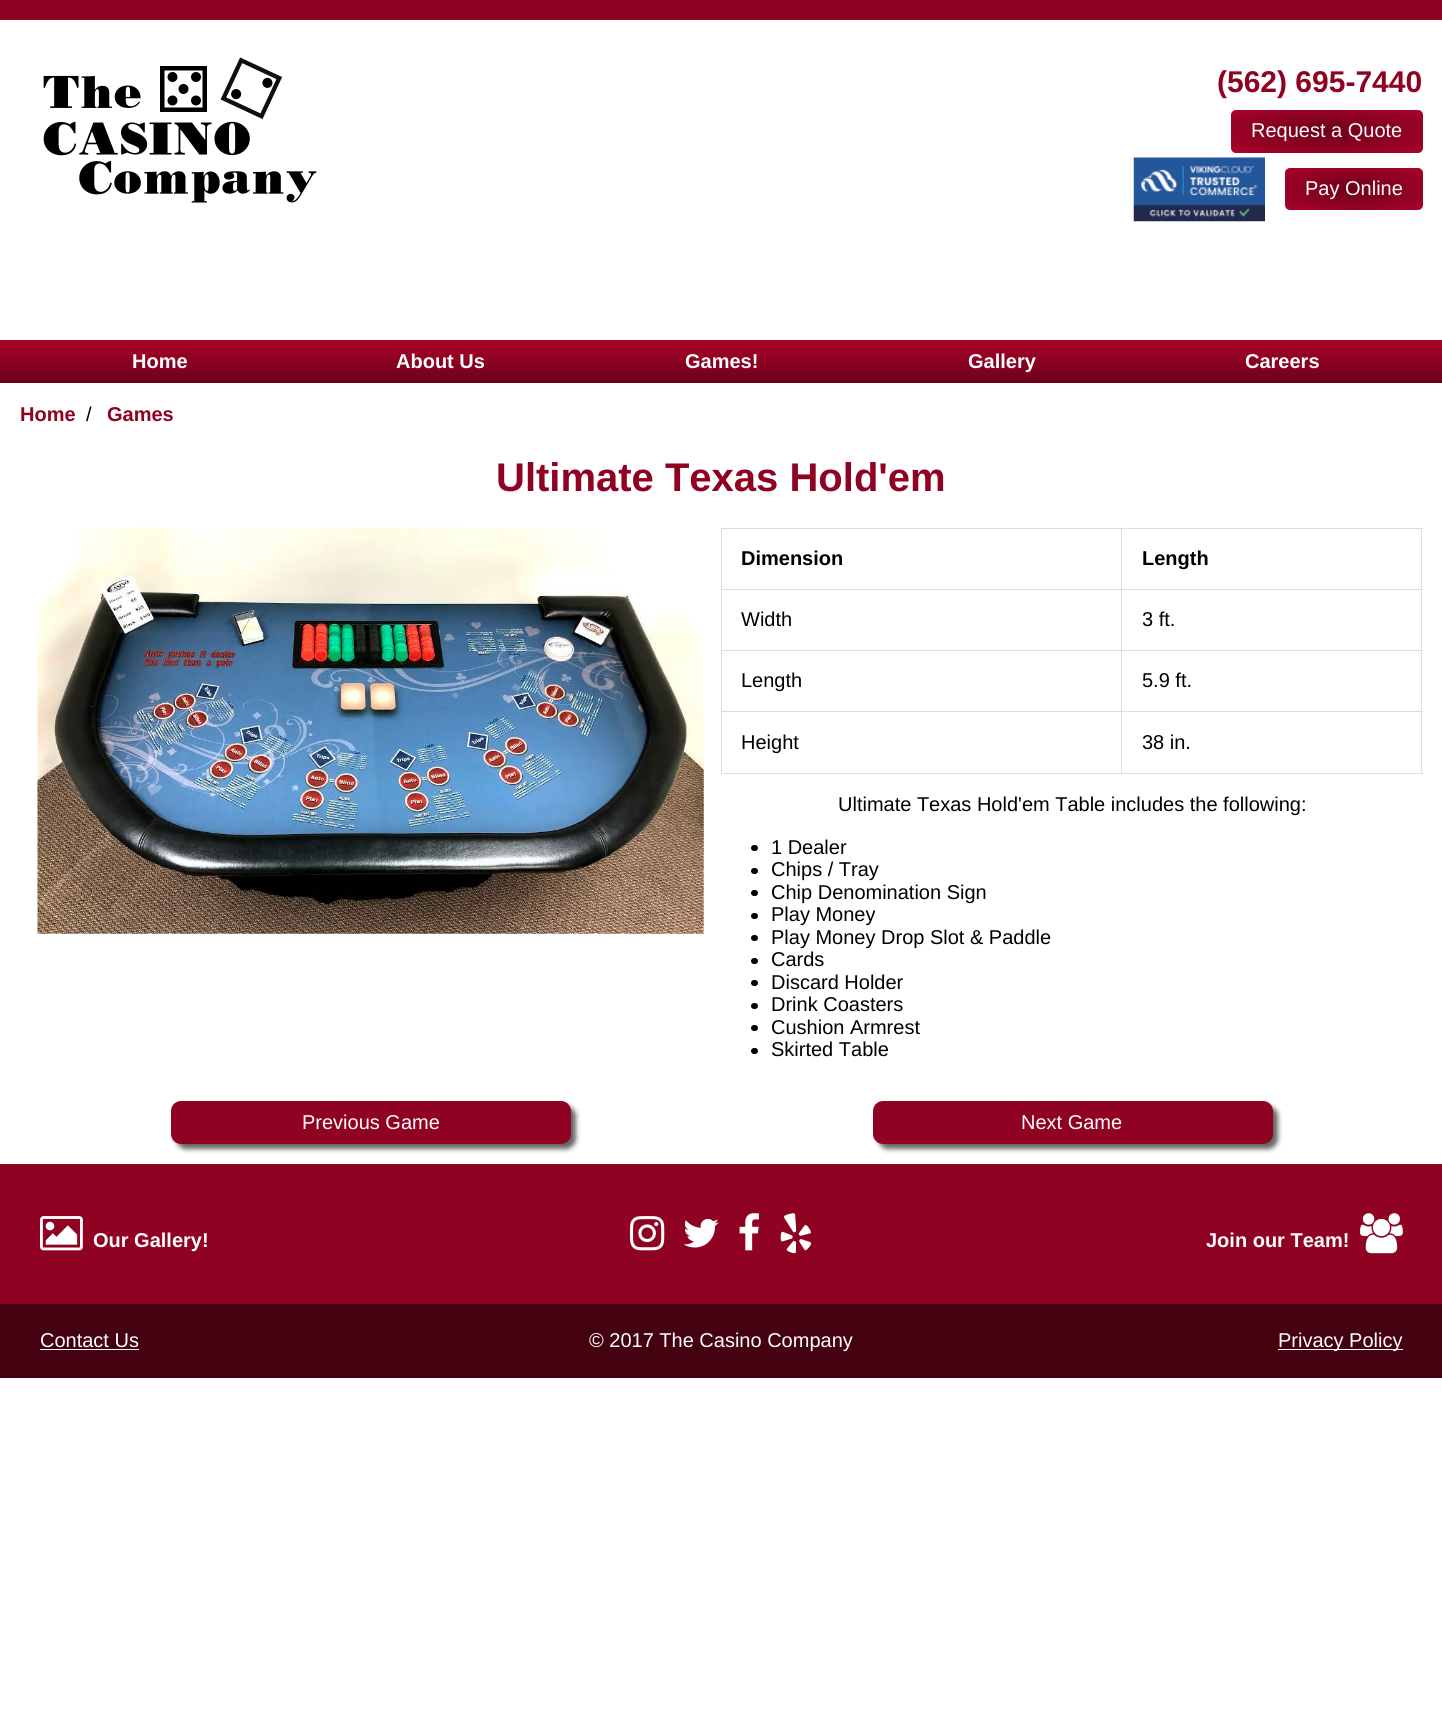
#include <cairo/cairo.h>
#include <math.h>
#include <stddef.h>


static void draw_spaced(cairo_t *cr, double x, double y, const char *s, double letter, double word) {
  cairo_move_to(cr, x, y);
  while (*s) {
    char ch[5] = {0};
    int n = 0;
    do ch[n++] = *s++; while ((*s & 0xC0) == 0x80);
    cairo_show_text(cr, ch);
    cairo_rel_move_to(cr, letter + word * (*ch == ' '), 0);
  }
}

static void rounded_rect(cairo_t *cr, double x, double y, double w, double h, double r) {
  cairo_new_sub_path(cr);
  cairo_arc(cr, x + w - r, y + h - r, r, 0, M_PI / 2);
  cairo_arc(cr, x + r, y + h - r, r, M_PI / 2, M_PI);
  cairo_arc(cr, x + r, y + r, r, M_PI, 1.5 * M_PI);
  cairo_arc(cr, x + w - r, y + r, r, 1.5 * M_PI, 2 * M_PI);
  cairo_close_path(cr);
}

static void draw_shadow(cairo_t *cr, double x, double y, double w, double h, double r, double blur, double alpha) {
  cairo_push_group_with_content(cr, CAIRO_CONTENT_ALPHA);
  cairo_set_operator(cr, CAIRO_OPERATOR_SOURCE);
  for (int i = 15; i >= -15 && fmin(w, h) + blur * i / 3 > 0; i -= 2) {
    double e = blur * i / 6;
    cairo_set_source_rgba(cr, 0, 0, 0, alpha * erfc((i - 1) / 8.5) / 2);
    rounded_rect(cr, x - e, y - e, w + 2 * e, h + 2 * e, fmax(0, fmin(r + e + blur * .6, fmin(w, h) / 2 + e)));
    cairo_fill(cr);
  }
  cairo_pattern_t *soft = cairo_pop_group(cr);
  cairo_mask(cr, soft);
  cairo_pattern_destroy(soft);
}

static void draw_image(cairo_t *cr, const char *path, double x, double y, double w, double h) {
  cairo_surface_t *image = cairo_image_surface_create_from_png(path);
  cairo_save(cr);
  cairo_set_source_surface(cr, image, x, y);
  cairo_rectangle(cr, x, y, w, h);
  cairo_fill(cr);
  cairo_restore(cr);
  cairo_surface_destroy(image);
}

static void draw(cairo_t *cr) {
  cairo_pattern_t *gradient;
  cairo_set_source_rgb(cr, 1, 1, 1);
  cairo_paint(cr);
  cairo_set_source_rgb(cr, 143 / 255.0, 2 / 255.0, 34 / 255.0);
  cairo_rectangle(cr, 0, 0, 1442, 20);
  cairo_fill(cr);
  draw_image(cr, "images/1.png", 43, 57, 274, 146);
  gradient = cairo_pattern_create_radial(0, 0, 0, 0, 0, 1);
  cairo_pattern_set_matrix(gradient, &(cairo_matrix_t){1.0 / 135, 0, 0, 1.0 / 30, -1.0 * 1327 / 135, -1.0 * 131 / 30});
  cairo_pattern_add_color_stop_rgba(gradient, 0, 109 / 255.0, 0, 25 / 255.0, 1);
  cairo_pattern_add_color_stop_rgba(gradient, 0.56, 143 / 255.0, 2 / 255.0, 34 / 255.0, 1);
  cairo_pattern_add_color_stop_rgba(gradient, 1, 169 / 255.0, 3 / 255.0, 41 / 255.0, 1);
  cairo_set_source(cr, gradient);
  cairo_pattern_destroy(gradient);
  rounded_rect(cr, 1231, 110, 192, 43, 5);
  cairo_fill(cr);
  draw_image(cr, "images/2.png", 1133, 157, 132, 65);
  gradient = cairo_pattern_create_radial(0, 0, 0, 0, 0, 1);
  cairo_pattern_set_matrix(gradient, &(cairo_matrix_t){1.0 / 97, 0, 0, 1.0 / 30, -1.0 * 1354 / 97, -1.0 * 189 / 30});
  cairo_pattern_add_color_stop_rgba(gradient, 0, 109 / 255.0, 0, 25 / 255.0, 1);
  cairo_pattern_add_color_stop_rgba(gradient, 0.56, 143 / 255.0, 2 / 255.0, 34 / 255.0, 1);
  cairo_pattern_add_color_stop_rgba(gradient, 1, 169 / 255.0, 3 / 255.0, 41 / 255.0, 1);
  cairo_set_source(cr, gradient);
  cairo_pattern_destroy(gradient);
  rounded_rect(cr, 1285, 168, 138, 42, 5);
  cairo_fill(cr);
  gradient = cairo_pattern_create_linear(721, 340, 721, 383);
  cairo_pattern_add_color_stop_rgba(gradient, 0, 169 / 255.0, 3 / 255.0, 41 / 255.0, 1);
  cairo_pattern_add_color_stop_rgba(gradient, 0.44, 143 / 255.0, 2 / 255.0, 34 / 255.0, 1);
  cairo_pattern_add_color_stop_rgba(gradient, 1, 109 / 255.0, 0, 25 / 255.0, 1);
  cairo_set_source(cr, gradient);
  cairo_pattern_destroy(gradient);
  cairo_rectangle(cr, 0, 340, 1442, 43);
  cairo_fill(cr);
  draw_image(cr, "images/3.png", 37, 527, 667, 407);
  cairo_set_source_rgb(cr, 221 / 255.0, 221 / 255.0, 221 / 255.0);
  cairo_rectangle(cr, 721, 528, 702, 1);
  cairo_fill(cr);
  cairo_rectangle(cr, 1421, 528, 1, 246);
  cairo_fill(cr);
  cairo_rectangle(cr, 721, 773, 702, 1);
  cairo_fill(cr);
  cairo_rectangle(cr, 721, 528, 1, 246);
  cairo_fill(cr);
  cairo_rectangle(cr, 1121, 589, 302, 1);
  cairo_fill(cr);
  cairo_rectangle(cr, 1121, 650, 302, 1);
  cairo_fill(cr);
  cairo_rectangle(cr, 1121, 711, 302, 1);
  cairo_fill(cr);
  cairo_rectangle(cr, 1121, 711, 1, 63);
  cairo_fill(cr);
  cairo_rectangle(cr, 721, 711, 402, 1);
  cairo_fill(cr);
  cairo_rectangle(cr, 1121, 650, 1, 63);
  cairo_fill(cr);
  cairo_rectangle(cr, 721, 650, 402, 1);
  cairo_fill(cr);
  cairo_rectangle(cr, 1121, 589, 1, 62);
  cairo_fill(cr);
  cairo_rectangle(cr, 721, 589, 402, 1);
  cairo_fill(cr);
  cairo_rectangle(cr, 1121, 528, 1, 62);
  cairo_fill(cr);
  cairo_set_source_rgb(cr, 0, 0, 0);
  rounded_rect(cr, 751, 845, 7, 6, 3);
  cairo_fill(cr);
  rounded_rect(cr, 751, 868, 7, 6, 3);
  cairo_fill(cr);
  rounded_rect(cr, 751, 890, 7, 6, 3);
  cairo_fill(cr);
  rounded_rect(cr, 751, 913, 7, 6, 3);
  cairo_fill(cr);
  rounded_rect(cr, 751, 935, 7, 6, 3);
  cairo_fill(cr);
  rounded_rect(cr, 751, 958, 7, 6, 3);
  cairo_fill(cr);
  rounded_rect(cr, 751, 980, 7, 6, 3);
  cairo_fill(cr);
  rounded_rect(cr, 751, 1003, 7, 6, 3);
  cairo_fill(cr);
  rounded_rect(cr, 751, 1025, 7, 6, 3);
  cairo_fill(cr);
  rounded_rect(cr, 751, 1048, 7, 6, 3);
  cairo_fill(cr);
  cairo_set_source_rgb(cr, 0, 0, 0);
  draw_shadow(cr, 176, 1106, 400, 43, 10, 2.5, 0.61);
  cairo_set_source_rgb(cr, 143 / 255.0, 2 / 255.0, 34 / 255.0);
  rounded_rect(cr, 171, 1101, 400, 43, 10);
  cairo_fill(cr);
  cairo_set_source_rgb(cr, 0, 0, 0);
  draw_shadow(cr, 878, 1106, 400, 43, 10, 2.5, 0.61);
  cairo_set_source_rgb(cr, 143 / 255.0, 2 / 255.0, 34 / 255.0);
  rounded_rect(cr, 873, 1101, 400, 43, 10);
  cairo_fill(cr);
  cairo_rectangle(cr, 0, 1164, 1442, 140);
  cairo_fill(cr);
  draw_image(cr, "images/4.png", 40, 1216, 43, 35);
  draw_image(cr, "images/5.png", 630, 1216, 35, 35);
  draw_image(cr, "images/6.png", 683, 1218, 36, 30);
  draw_image(cr, "images/7.png", 739, 1213, 20, 38);
  draw_image(cr, "images/8.png", 780, 1213, 32, 41);
  draw_image(cr, "images/9.png", 1360, 1213, 43, 41);
  cairo_set_source_rgb(cr, 68 / 255.0, 1 / 255.0, 16 / 255.0);
  cairo_rectangle(cr, 0, 1304, 1442, 74);
  cairo_fill(cr);
  cairo_set_source_rgb(cr, 1, 1, 1);
  cairo_rectangle(cr, 40, 1349, 99, 1);
  cairo_fill(cr);
  cairo_rectangle(cr, 1278, 1349, 125, 1);
  cairo_fill(cr);
  cairo_select_font_face(cr, "Liberation Sans", CAIRO_FONT_SLANT_NORMAL, CAIRO_FONT_WEIGHT_BOLD);
  cairo_set_font_size(cr, 30);
  cairo_set_source_rgb(cr, 143 / 255.0, 2 / 255.0, 34 / 255.0);
  cairo_move_to(cr, 1217, 92);
  cairo_show_text(cr, "(562) 695-7440");
  cairo_select_font_face(cr, "Liberation Sans", CAIRO_FONT_SLANT_NORMAL, CAIRO_FONT_WEIGHT_NORMAL);
  cairo_set_font_size(cr, 20);
  cairo_set_source_rgb(cr, 1, 1, 1);
  cairo_move_to(cr, 1251, 137);
  cairo_show_text(cr, "Request a Quote");
  cairo_move_to(cr, 1305, 195);
  cairo_show_text(cr, "Pay Online");
  cairo_select_font_face(cr, "Liberation Sans", CAIRO_FONT_SLANT_NORMAL, CAIRO_FONT_WEIGHT_BOLD);
  cairo_move_to(cr, 132, 368);
  cairo_show_text(cr, "Home");
  cairo_move_to(cr, 396, 368);
  cairo_show_text(cr, "About Us");
  cairo_move_to(cr, 685, 368);
  cairo_show_text(cr, "Games!");
  cairo_move_to(cr, 968, 368);
  cairo_show_text(cr, "Gallery");
  cairo_move_to(cr, 1245, 368);
  cairo_show_text(cr, "Careers");
  cairo_set_source_rgb(cr, 143 / 255.0, 2 / 255.0, 34 / 255.0);
  cairo_move_to(cr, 20, 421);
  cairo_show_text(cr, "Home");
  cairo_select_font_face(cr, "Liberation Sans", CAIRO_FONT_SLANT_NORMAL, CAIRO_FONT_WEIGHT_NORMAL);
  cairo_set_source_rgb(cr, 0, 0, 0);
  draw_spaced(cr, 86, 421, "/", 5, 0);
  cairo_select_font_face(cr, "Liberation Sans", CAIRO_FONT_SLANT_NORMAL, CAIRO_FONT_WEIGHT_BOLD);
  cairo_set_source_rgb(cr, 143 / 255.0, 2 / 255.0, 34 / 255.0);
  cairo_move_to(cr, 107, 421);
  cairo_show_text(cr, "Games");
  cairo_set_font_size(cr, 40);
  cairo_move_to(cr, 496, 491);
  cairo_show_text(cr, "Ultimate Texas Hold'em");
  cairo_set_font_size(cr, 20);
  cairo_set_source_rgb(cr, 0, 0, 0);
  cairo_move_to(cr, 741, 565);
  cairo_show_text(cr, "Dimension");
  cairo_move_to(cr, 1142, 565);
  cairo_show_text(cr, "Length");
  cairo_select_font_face(cr, "Liberation Sans", CAIRO_FONT_SLANT_NORMAL, CAIRO_FONT_WEIGHT_NORMAL);
  cairo_move_to(cr, 741, 626);
  cairo_show_text(cr, "Width");
  cairo_move_to(cr, 1142, 626);
  cairo_show_text(cr, "3 ft.");
  cairo_move_to(cr, 741, 687);
  cairo_show_text(cr, "Length");
  cairo_move_to(cr, 1142, 687);
  cairo_show_text(cr, "5.9 ft.");
  cairo_move_to(cr, 741, 749);
  cairo_show_text(cr, "Height");
  cairo_move_to(cr, 1142, 749);
  cairo_show_text(cr, "38 in.");
  cairo_move_to(cr, 838, 811);
  cairo_show_text(cr, "Ultimate Texas Hold'em Table includes the following:");
  cairo_move_to(cr, 771, 854);
  cairo_show_text(cr, "1 Dealer");
  cairo_move_to(cr, 771, 876);
  cairo_show_text(cr, "Chips / Tray");
  cairo_move_to(cr, 771, 899);
  cairo_show_text(cr, "Chip Denomination Sign");
  cairo_move_to(cr, 771, 921);
  cairo_show_text(cr, "Play Money");
  cairo_move_to(cr, 771, 944);
  cairo_show_text(cr, "Play Money Drop Slot & Paddle");
  cairo_move_to(cr, 771, 966);
  cairo_show_text(cr, "Cards");
  cairo_move_to(cr, 771, 989);
  cairo_show_text(cr, "Discard Holder");
  cairo_move_to(cr, 771, 1011);
  cairo_show_text(cr, "Drink Coasters");
  cairo_move_to(cr, 771, 1034);
  cairo_show_text(cr, "Cushion Armrest");
  cairo_move_to(cr, 771, 1056);
  cairo_show_text(cr, "Skirted Table");
  cairo_set_source_rgb(cr, 1, 1, 1);
  cairo_move_to(cr, 302, 1129);
  cairo_show_text(cr, "Previous Game");
  cairo_move_to(cr, 1021, 1129);
  cairo_show_text(cr, "Next Game");
  cairo_select_font_face(cr, "Liberation Sans", CAIRO_FONT_SLANT_NORMAL, CAIRO_FONT_WEIGHT_BOLD);
  cairo_move_to(cr, 93, 1247);
  cairo_show_text(cr, "Our Gallery!");
  cairo_move_to(cr, 1206, 1247);
  cairo_show_text(cr, "Join our Team!");
  cairo_select_font_face(cr, "Liberation Sans", CAIRO_FONT_SLANT_NORMAL, CAIRO_FONT_WEIGHT_NORMAL);
  cairo_move_to(cr, 40, 1347);
  cairo_show_text(cr, "Contact Us");
  cairo_move_to(cr, 589, 1347);
  cairo_show_text(cr, "© 2017 The Casino Company");
  cairo_move_to(cr, 1278, 1347);
  cairo_show_text(cr, "Privacy Policy");
}

int main(void) {
  cairo_surface_t *surface = cairo_image_surface_create(CAIRO_FORMAT_RGB24, 1442, 1725);
  cairo_t *cr = cairo_create(surface);
  cairo_font_options_t *options = cairo_font_options_create();
  cairo_font_options_set_hint_metrics(options, CAIRO_HINT_METRICS_OFF);
  cairo_font_options_set_hint_style(options, CAIRO_HINT_STYLE_NONE);
  cairo_set_font_options(cr, options);
  cairo_set_miter_limit(cr, 4);
  draw(cr);
  cairo_surface_write_to_png(surface, "out.png");
  cairo_font_options_destroy(options);
  cairo_destroy(cr);
  cairo_surface_destroy(surface);
  return 0;
}
